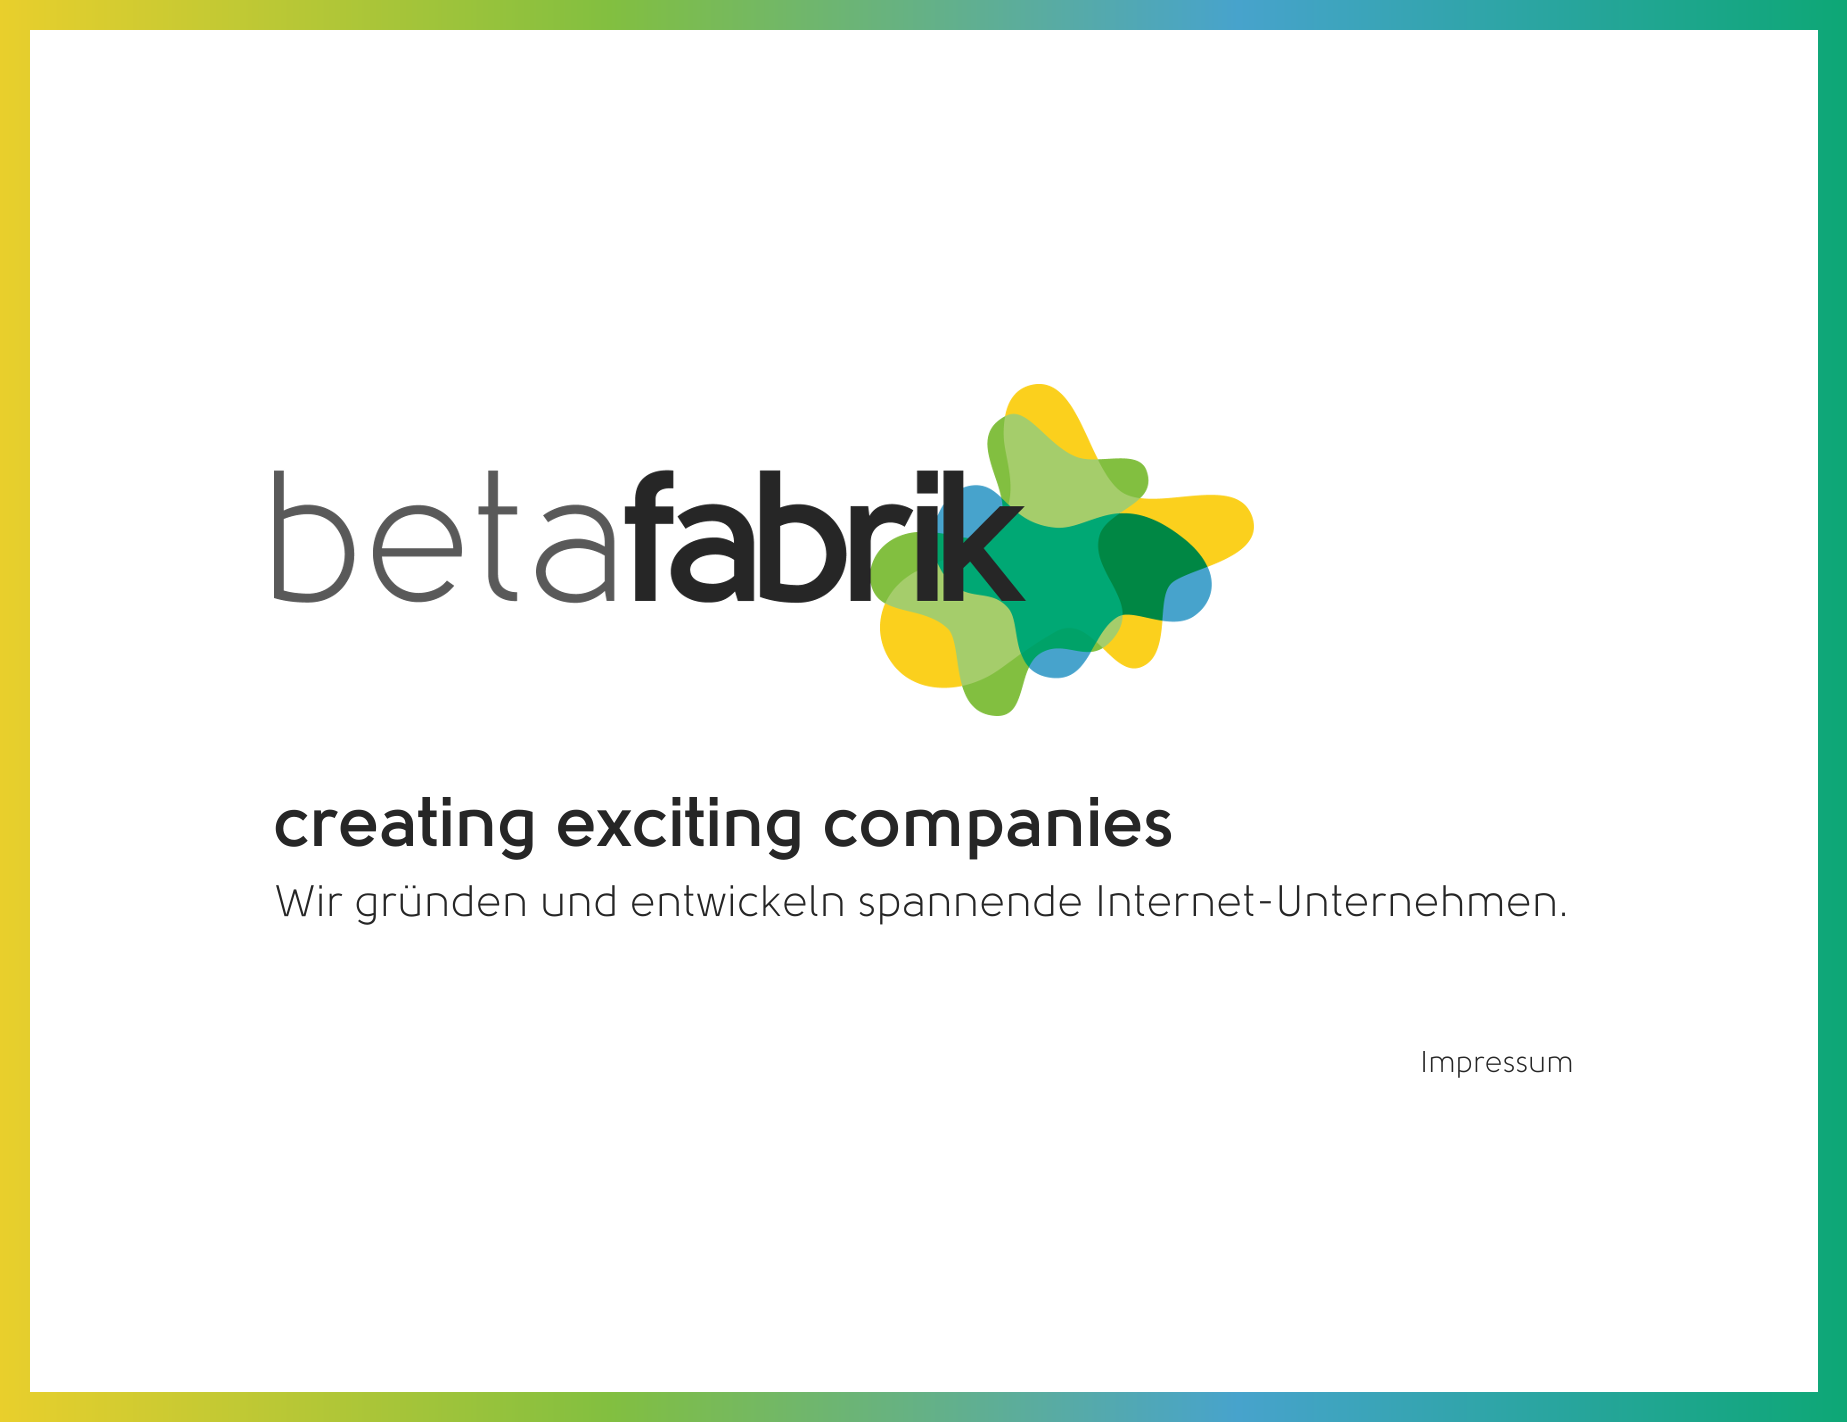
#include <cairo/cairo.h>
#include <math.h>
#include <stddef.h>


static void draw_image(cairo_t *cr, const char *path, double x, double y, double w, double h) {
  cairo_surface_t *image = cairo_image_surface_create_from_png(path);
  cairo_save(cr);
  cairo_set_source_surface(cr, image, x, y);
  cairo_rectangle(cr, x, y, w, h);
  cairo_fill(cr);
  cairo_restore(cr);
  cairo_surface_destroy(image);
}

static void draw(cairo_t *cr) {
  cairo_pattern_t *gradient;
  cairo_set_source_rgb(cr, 1, 1, 1);
  cairo_paint(cr);
  gradient = cairo_pattern_create_linear(0, 711, 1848, 711);
  cairo_pattern_add_color_stop_rgba(gradient, 0, 233 / 255.0, 207 / 255.0, 44 / 255.0, 1);
  cairo_pattern_add_color_stop_rgba(gradient, 0.33, 130 / 255.0, 191 / 255.0, 64 / 255.0, 1);
  cairo_pattern_add_color_stop_rgba(gradient, 0.67, 71 / 255.0, 163 / 255.0, 204 / 255.0, 1);
  cairo_pattern_add_color_stop_rgba(gradient, 1, 13 / 255.0, 167 / 255.0, 117 / 255.0, 1);
  cairo_set_source(cr, gradient);
  cairo_pattern_destroy(gradient);
  cairo_rectangle(cr, 0, 0, 1847, 1422);
  cairo_fill(cr);
  cairo_set_source_rgb(cr, 1, 1, 1);
  cairo_rectangle(cr, 30, 30, 1788, 1362);
  cairo_fill(cr);
  draw_image(cr, "images/1.png", 274, 384, 980, 332);
  cairo_select_font_face(cr, "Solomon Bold", CAIRO_FONT_SLANT_NORMAL, CAIRO_FONT_WEIGHT_BOLD);
  cairo_set_font_size(cr, 70);
  cairo_set_source_rgb(cr, 38 / 255.0, 38 / 255.0, 38 / 255.0);
  cairo_move_to(cr, 274, 846);
  cairo_show_text(cr, "creating exciting companies");
  cairo_select_font_face(cr, "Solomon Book", CAIRO_FONT_SLANT_NORMAL, CAIRO_FONT_WEIGHT_NORMAL);
  cairo_set_font_size(cr, 44);
  cairo_move_to(cr, 274, 916);
  cairo_show_text(cr, "Wir gründen und entwickeln spannende Internet-Unternehmen.");
  cairo_set_font_size(cr, 30);
  cairo_move_to(cr, 1420, 1072);
  cairo_show_text(cr, "Impressum");
}

int main(void) {
  cairo_surface_t *surface = cairo_image_surface_create(CAIRO_FORMAT_RGB24, 1847, 1422);
  cairo_t *cr = cairo_create(surface);
  cairo_font_options_t *options = cairo_font_options_create();
  cairo_font_options_set_hint_metrics(options, CAIRO_HINT_METRICS_OFF);
  cairo_font_options_set_hint_style(options, CAIRO_HINT_STYLE_NONE);
  cairo_set_font_options(cr, options);
  cairo_set_miter_limit(cr, 4);
  draw(cr);
  cairo_surface_write_to_png(surface, "out.png");
  cairo_font_options_destroy(options);
  cairo_destroy(cr);
  cairo_surface_destroy(surface);
  return 0;
}
